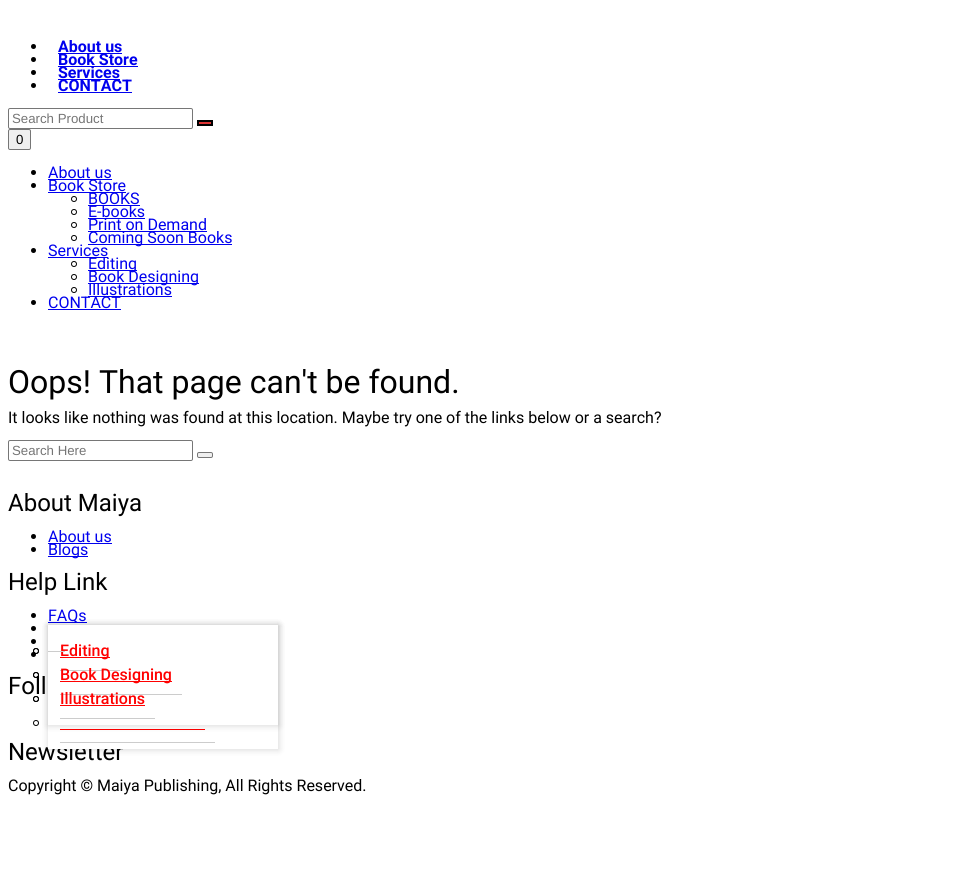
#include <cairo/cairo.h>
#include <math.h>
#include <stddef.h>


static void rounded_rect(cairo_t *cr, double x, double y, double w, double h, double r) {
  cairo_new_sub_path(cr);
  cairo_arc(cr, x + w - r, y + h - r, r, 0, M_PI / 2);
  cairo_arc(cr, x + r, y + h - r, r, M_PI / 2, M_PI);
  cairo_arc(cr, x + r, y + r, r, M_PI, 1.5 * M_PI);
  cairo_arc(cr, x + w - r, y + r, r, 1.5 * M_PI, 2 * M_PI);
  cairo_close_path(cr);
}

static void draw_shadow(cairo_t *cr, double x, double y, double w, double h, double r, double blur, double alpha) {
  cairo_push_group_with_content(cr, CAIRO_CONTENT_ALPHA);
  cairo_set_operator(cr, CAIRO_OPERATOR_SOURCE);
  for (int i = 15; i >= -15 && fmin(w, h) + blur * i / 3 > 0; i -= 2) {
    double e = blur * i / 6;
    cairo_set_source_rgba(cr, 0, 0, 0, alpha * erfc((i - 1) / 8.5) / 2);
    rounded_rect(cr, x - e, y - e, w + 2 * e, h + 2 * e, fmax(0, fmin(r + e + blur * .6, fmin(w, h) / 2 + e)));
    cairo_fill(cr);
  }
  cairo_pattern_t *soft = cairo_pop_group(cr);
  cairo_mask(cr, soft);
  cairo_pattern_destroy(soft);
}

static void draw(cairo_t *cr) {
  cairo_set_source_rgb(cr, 1, 1, 1);
  cairo_paint(cr);
  cairo_set_source_rgb(cr, 0, 0, 0);
  cairo_arc(cr, 33.5, 46.5, 2.5, 0, 2 * M_PI);
  cairo_fill(cr);
  cairo_set_source_rgb(cr, 0, 0, 238 / 255.0);
  cairo_rectangle(cr, 58, 53, 64, 1);
  cairo_fill(cr);
  cairo_set_source_rgb(cr, 0, 0, 0);
  cairo_arc(cr, 33.5, 59.5, 2.5, 0, 2 * M_PI);
  cairo_fill(cr);
  cairo_set_source_rgb(cr, 0, 0, 238 / 255.0);
  cairo_rectangle(cr, 58, 66, 80, 1);
  cairo_fill(cr);
  cairo_rectangle(cr, 48, 622, 39, 1);
  cairo_fill(cr);
  cairo_set_source_rgb(cr, 0, 0, 0);
  draw_shadow(cr, 48, 625, 231, 125, 0, 3.5, 0.15);
  cairo_set_source_rgb(cr, 0, 0, 0);
  cairo_arc(cr, 33.5, 654.5, 2.5, 0, 2 * M_PI);
  cairo_fill(cr);
  cairo_arc(cr, 36, 651, 2.5, 0, 2 * M_PI);
  cairo_set_line_width(cr, 1);
  cairo_stroke(cr);
  cairo_arc(cr, 36, 675, 2.5, 0, 2 * M_PI);
  cairo_stroke(cr);
  cairo_arc(cr, 36, 699, 2.5, 0, 2 * M_PI);
  cairo_stroke(cr);
  cairo_arc(cr, 36, 723, 2.5, 0, 2 * M_PI);
  cairo_stroke(cr);
  cairo_arc(cr, 33.5, 72.5, 2.5, 0, 2 * M_PI);
  cairo_fill(cr);
  cairo_set_source_rgb(cr, 0, 0, 238 / 255.0);
  cairo_rectangle(cr, 58, 79, 62, 1);
  cairo_fill(cr);
  cairo_set_source_rgb(cr, 0, 0, 0);
  cairo_arc(cr, 33.5, 85.5, 2.5, 0, 2 * M_PI);
  cairo_fill(cr);
  cairo_set_source_rgb(cr, 0, 0, 238 / 255.0);
  cairo_rectangle(cr, 58, 92, 74, 1);
  cairo_fill(cr);
  rounded_rect(cr, 8.5, 108.5, 184, 20, 1.5);
  cairo_set_source_rgb(cr, 118 / 255.0, 118 / 255.0, 118 / 255.0);
  cairo_stroke(cr);
  cairo_set_source_rgb(cr, 221 / 255.0, 51 / 255.0, 51 / 255.0);
  cairo_rectangle(cr, 198, 121, 14, 4);
  cairo_fill_preserve(cr);
  cairo_set_source_rgb(cr, 0, 0, 0);
  cairo_set_line_width(cr, 2);
  cairo_stroke(cr);
  cairo_set_source_rgb(cr, 239 / 255.0, 239 / 255.0, 239 / 255.0);
  rounded_rect(cr, 8.5, 129.5, 22, 20, 1.5);
  cairo_fill_preserve(cr);
  cairo_set_source_rgb(cr, 118 / 255.0, 118 / 255.0, 118 / 255.0);
  cairo_set_line_width(cr, 1);
  cairo_stroke(cr);
  cairo_set_source_rgb(cr, 0, 0, 0);
  cairo_arc(cr, 33.5, 172.5, 2.5, 0, 2 * M_PI);
  cairo_fill(cr);
  cairo_set_source_rgb(cr, 0, 0, 238 / 255.0);
  cairo_rectangle(cr, 48, 179, 64, 1);
  cairo_fill(cr);
  cairo_set_source_rgb(cr, 0, 0, 0);
  cairo_arc(cr, 33.5, 185.5, 2.5, 0, 2 * M_PI);
  cairo_fill(cr);
  cairo_set_source_rgb(cr, 0, 0, 238 / 255.0);
  cairo_rectangle(cr, 48, 192, 78, 1);
  cairo_fill(cr);
  cairo_arc(cr, 74, 199, 2.5, 0, 2 * M_PI);
  cairo_set_source_rgb(cr, 0, 0, 0);
  cairo_stroke(cr);
  cairo_set_source_rgb(cr, 0, 0, 238 / 255.0);
  cairo_rectangle(cr, 88, 205, 52, 1);
  cairo_fill(cr);
  cairo_arc(cr, 74, 212, 2.5, 0, 2 * M_PI);
  cairo_set_source_rgb(cr, 0, 0, 0);
  cairo_stroke(cr);
  cairo_set_source_rgb(cr, 0, 0, 238 / 255.0);
  cairo_rectangle(cr, 88, 218, 57, 1);
  cairo_fill(cr);
  cairo_arc(cr, 74, 225, 2.5, 0, 2 * M_PI);
  cairo_set_source_rgb(cr, 0, 0, 0);
  cairo_stroke(cr);
  cairo_set_source_rgb(cr, 0, 0, 238 / 255.0);
  cairo_rectangle(cr, 88, 231, 119, 1);
  cairo_fill(cr);
  cairo_arc(cr, 74, 238, 2.5, 0, 2 * M_PI);
  cairo_set_source_rgb(cr, 0, 0, 0);
  cairo_stroke(cr);
  cairo_set_source_rgb(cr, 0, 0, 238 / 255.0);
  cairo_rectangle(cr, 88, 244, 144, 1);
  cairo_fill(cr);
  cairo_set_source_rgb(cr, 0, 0, 0);
  cairo_arc(cr, 33.5, 250.5, 2.5, 0, 2 * M_PI);
  cairo_fill(cr);
  cairo_set_source_rgb(cr, 0, 0, 238 / 255.0);
  cairo_rectangle(cr, 48, 257, 60, 1);
  cairo_fill(cr);
  cairo_arc(cr, 74, 264, 2.5, 0, 2 * M_PI);
  cairo_set_source_rgb(cr, 0, 0, 0);
  cairo_stroke(cr);
  cairo_set_source_rgb(cr, 0, 0, 238 / 255.0);
  cairo_rectangle(cr, 88, 270, 49, 1);
  cairo_fill(cr);
  cairo_arc(cr, 74, 277, 2.5, 0, 2 * M_PI);
  cairo_set_source_rgb(cr, 0, 0, 0);
  cairo_stroke(cr);
  cairo_set_source_rgb(cr, 0, 0, 238 / 255.0);
  cairo_rectangle(cr, 88, 283, 111, 1);
  cairo_fill(cr);
  cairo_arc(cr, 74, 290, 2.5, 0, 2 * M_PI);
  cairo_set_source_rgb(cr, 0, 0, 0);
  cairo_stroke(cr);
  cairo_set_source_rgb(cr, 0, 0, 238 / 255.0);
  cairo_rectangle(cr, 88, 296, 84, 1);
  cairo_fill(cr);
  cairo_set_source_rgb(cr, 0, 0, 0);
  cairo_arc(cr, 33.5, 302.5, 2.5, 0, 2 * M_PI);
  cairo_fill(cr);
  cairo_set_source_rgb(cr, 0, 0, 238 / 255.0);
  cairo_rectangle(cr, 48, 309, 73, 1);
  cairo_fill(cr);
  rounded_rect(cr, 8.5, 440.5, 184, 20, 1.5);
  cairo_set_source_rgb(cr, 118 / 255.0, 118 / 255.0, 118 / 255.0);
  cairo_stroke(cr);
  cairo_set_source_rgb(cr, 239 / 255.0, 239 / 255.0, 239 / 255.0);
  rounded_rect(cr, 197.5, 452.5, 15, 5, 1.5);
  cairo_fill_preserve(cr);
  cairo_set_source_rgb(cr, 118 / 255.0, 118 / 255.0, 118 / 255.0);
  cairo_stroke(cr);
  cairo_set_source_rgb(cr, 0, 0, 0);
  cairo_arc(cr, 33.5, 536.5, 2.5, 0, 2 * M_PI);
  cairo_fill(cr);
  cairo_set_source_rgb(cr, 0, 0, 238 / 255.0);
  cairo_rectangle(cr, 48, 543, 64, 1);
  cairo_fill(cr);
  cairo_set_source_rgb(cr, 0, 0, 0);
  cairo_arc(cr, 33.5, 549.5, 2.5, 0, 2 * M_PI);
  cairo_fill(cr);
  cairo_set_source_rgb(cr, 0, 0, 238 / 255.0);
  cairo_rectangle(cr, 48, 556, 40, 1);
  cairo_fill(cr);
  cairo_set_source_rgb(cr, 0, 0, 0);
  cairo_arc(cr, 33.5, 615.5, 2.5, 0, 2 * M_PI);
  cairo_fill(cr);
  cairo_arc(cr, 33.5, 628.5, 2.5, 0, 2 * M_PI);
  cairo_fill(cr);
  cairo_arc(cr, 33.5, 641.5, 2.5, 0, 2 * M_PI);
  cairo_fill(cr);
  cairo_select_font_face(cr, "Roboto", CAIRO_FONT_SLANT_NORMAL, CAIRO_FONT_WEIGHT_BOLD);
  cairo_set_font_size(cr, 16);
  cairo_set_source_rgb(cr, 0, 0, 238 / 255.0);
  cairo_move_to(cr, 58, 52);
  cairo_show_text(cr, "About us");
  cairo_move_to(cr, 58, 65);
  cairo_show_text(cr, "Book Store");
  cairo_move_to(cr, 58, 78);
  cairo_show_text(cr, "Services");
  cairo_move_to(cr, 58, 91);
  cairo_show_text(cr, "CONTACT");
  cairo_select_font_face(cr, "Liberation Sans", CAIRO_FONT_SLANT_NORMAL, CAIRO_FONT_WEIGHT_NORMAL);
  cairo_set_font_size(cr, 13.25);
  cairo_set_source_rgb(cr, 117 / 255.0, 117 / 255.0, 117 / 255.0);
  cairo_move_to(cr, 12, 123);
  cairo_show_text(cr, "Search Product");
  cairo_set_source_rgb(cr, 0, 0, 0);
  cairo_move_to(cr, 16, 144);
  cairo_show_text(cr, "0");
  cairo_select_font_face(cr, "Roboto", CAIRO_FONT_SLANT_NORMAL, CAIRO_FONT_WEIGHT_NORMAL);
  cairo_set_font_size(cr, 16);
  cairo_set_source_rgb(cr, 0, 0, 238 / 255.0);
  cairo_move_to(cr, 48, 178);
  cairo_show_text(cr, "About us");
  cairo_move_to(cr, 48, 191);
  cairo_show_text(cr, "Book Store");
  cairo_move_to(cr, 88, 204);
  cairo_show_text(cr, "BOOKS");
  cairo_move_to(cr, 88, 217);
  cairo_show_text(cr, "E-books");
  cairo_move_to(cr, 88, 230);
  cairo_show_text(cr, "Print on Demand");
  cairo_move_to(cr, 88, 243);
  cairo_show_text(cr, "Coming Soon Books");
  cairo_move_to(cr, 48, 256);
  cairo_show_text(cr, "Services");
  cairo_move_to(cr, 88, 269);
  cairo_show_text(cr, "Editing");
  cairo_move_to(cr, 88, 282);
  cairo_show_text(cr, "Book Designing");
  cairo_move_to(cr, 88, 295);
  cairo_show_text(cr, "Illustrations");
  cairo_move_to(cr, 48, 308);
  cairo_show_text(cr, "CONTACT");
  cairo_set_font_size(cr, 32);
  cairo_set_source_rgb(cr, 0, 0, 0);
  cairo_move_to(cr, 8, 393);
  cairo_show_text(cr, "Oops! That page can't be found.");
  cairo_set_font_size(cr, 16);
  cairo_move_to(cr, 8, 423);
  cairo_show_text(cr, "It looks like nothing was found at this location. Maybe try one of the links below or a search?");
  cairo_select_font_face(cr, "Liberation Sans", CAIRO_FONT_SLANT_NORMAL, CAIRO_FONT_WEIGHT_NORMAL);
  cairo_set_font_size(cr, 13.25);
  cairo_set_source_rgb(cr, 117 / 255.0, 117 / 255.0, 117 / 255.0);
  cairo_move_to(cr, 12, 455);
  cairo_show_text(cr, "Search Here");
  cairo_select_font_face(cr, "Roboto", CAIRO_FONT_SLANT_NORMAL, CAIRO_FONT_WEIGHT_NORMAL);
  cairo_set_font_size(cr, 24);
  cairo_set_source_rgb(cr, 0, 0, 0);
  cairo_move_to(cr, 8, 511);
  cairo_show_text(cr, "About Maiya");
  cairo_set_font_size(cr, 16);
  cairo_set_source_rgb(cr, 0, 0, 238 / 255.0);
  cairo_move_to(cr, 48, 542);
  cairo_show_text(cr, "About us");
  cairo_move_to(cr, 48, 555);
  cairo_show_text(cr, "Blogs");
  cairo_set_font_size(cr, 24);
  cairo_set_source_rgb(cr, 0, 0, 0);
  cairo_move_to(cr, 8, 590);
  cairo_show_text(cr, "Help Link");
  cairo_set_font_size(cr, 16);
  cairo_set_source_rgb(cr, 0, 0, 238 / 255.0);
  cairo_move_to(cr, 48, 621);
  cairo_show_text(cr, "FAQs");
  cairo_set_font_size(cr, 24);
  cairo_set_source_rgb(cr, 0, 0, 0);
  cairo_move_to(cr, 8, 694);
  cairo_show_text(cr, "Foll");
  cairo_move_to(cr, 8, 760);
  cairo_show_text(cr, "Newsletter");
  cairo_set_source_rgb(cr, 1, 1, 1);
  cairo_rectangle(cr, 48, 725, 230, 24);
  cairo_fill(cr);
  cairo_set_source_rgb(cr, 1, 0, 0);
  cairo_rectangle(cr, 60, 729, 145, 1);
  cairo_fill(cr);
  cairo_set_source_rgb(cr, 0, 0, 0);
  draw_shadow(cr, 48, 625, 231, 101, 0, 3.5, 0.15);
  cairo_set_source_rgb(cr, 1, 1, 1);
  cairo_rectangle(cr, 48, 625, 230, 100);
  cairo_fill(cr);
  cairo_set_source_rgb(cr, 204 / 255.0, 204 / 255.0, 204 / 255.0);
  cairo_rectangle(cr, 60, 694, 122, 1);
  cairo_fill(cr);
  cairo_select_font_face(cr, "Roboto Medium", CAIRO_FONT_SLANT_NORMAL, CAIRO_FONT_WEIGHT_NORMAL);
  cairo_set_font_size(cr, 16);
  cairo_set_source_rgb(cr, 1, 0, 0);
  cairo_move_to(cr, 60, 704);
  cairo_show_text(cr, "Illustrations");
  cairo_rectangle(cr, 60, 705, 85, 1);
  cairo_fill(cr);
  cairo_set_source_rgb(cr, 204 / 255.0, 204 / 255.0, 204 / 255.0);
  cairo_rectangle(cr, 60, 718, 95, 1);
  cairo_fill(cr);
  cairo_arc(cr, 36, 699, 2.5, 0, 2 * M_PI);
  cairo_set_source_rgb(cr, 0, 0, 0);
  cairo_stroke(cr);
  cairo_set_source_rgb(cr, 1, 0, 0);
  cairo_rectangle(cr, 60, 681, 112, 1);
  cairo_fill(cr);
  cairo_set_source_rgb(cr, 204 / 255.0, 204 / 255.0, 204 / 255.0);
  cairo_rectangle(cr, 60, 670, 60, 1);
  cairo_fill(cr);
  cairo_set_source_rgb(cr, 1, 0, 0);
  cairo_move_to(cr, 60, 680);
  cairo_show_text(cr, "Book Designing");
  cairo_rectangle(cr, 60, 657, 50, 1);
  cairo_fill(cr);
  cairo_move_to(cr, 60, 656);
  cairo_show_text(cr, "Editing");
  cairo_set_source_rgb(cr, 204 / 255.0, 204 / 255.0, 204 / 255.0);
  cairo_rectangle(cr, 48, 651, 17, 1);
  cairo_fill(cr);
  cairo_arc(cr, 36, 675, 2.5, 0, 2 * M_PI);
  cairo_set_source_rgb(cr, 0, 0, 0);
  cairo_stroke(cr);
  cairo_arc(cr, 36, 651, 2.5, 0, 2 * M_PI);
  cairo_stroke(cr);
  cairo_set_source_rgb(cr, 204 / 255.0, 204 / 255.0, 204 / 255.0);
  cairo_rectangle(cr, 60, 742, 155, 1);
  cairo_fill(cr);
  cairo_select_font_face(cr, "Roboto", CAIRO_FONT_SLANT_NORMAL, CAIRO_FONT_WEIGHT_NORMAL);
  cairo_set_source_rgb(cr, 0, 0, 0);
  cairo_move_to(cr, 8, 791);
  cairo_show_text(cr, "Copyright © Maiya Publishing, All Rights Reserved.");
}

int main(void) {
  cairo_surface_t *surface = cairo_image_surface_create(CAIRO_FORMAT_RGB24, 976, 893);
  cairo_t *cr = cairo_create(surface);
  cairo_font_options_t *options = cairo_font_options_create();
  cairo_font_options_set_hint_metrics(options, CAIRO_HINT_METRICS_OFF);
  cairo_font_options_set_hint_style(options, CAIRO_HINT_STYLE_NONE);
  cairo_set_font_options(cr, options);
  cairo_set_miter_limit(cr, 4);
  draw(cr);
  cairo_surface_write_to_png(surface, "out.png");
  cairo_font_options_destroy(options);
  cairo_destroy(cr);
  cairo_surface_destroy(surface);
  return 0;
}
